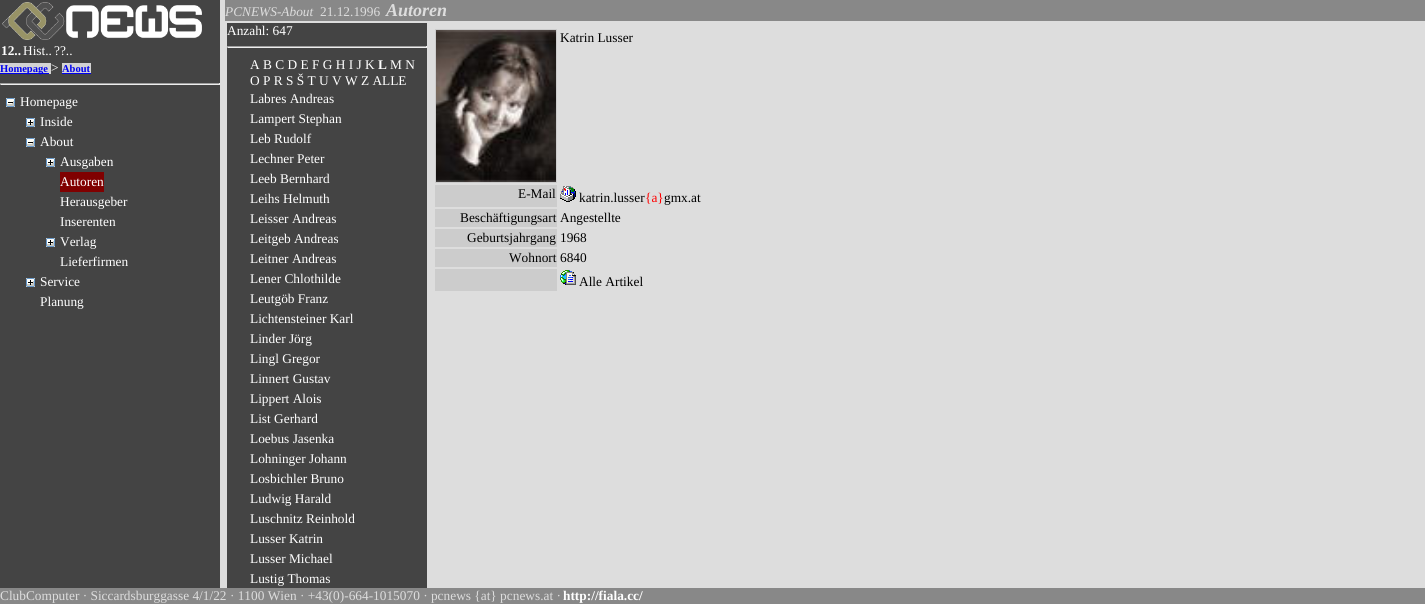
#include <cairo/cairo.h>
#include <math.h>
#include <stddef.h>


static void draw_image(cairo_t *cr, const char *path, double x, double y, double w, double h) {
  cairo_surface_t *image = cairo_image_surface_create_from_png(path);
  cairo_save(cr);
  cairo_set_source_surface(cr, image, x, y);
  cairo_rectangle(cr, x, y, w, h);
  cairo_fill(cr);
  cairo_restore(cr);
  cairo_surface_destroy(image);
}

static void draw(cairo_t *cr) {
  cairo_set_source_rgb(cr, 221 / 255.0, 221 / 255.0, 221 / 255.0);
  cairo_paint(cr);
  cairo_set_source_rgb(cr, 136 / 255.0, 136 / 255.0, 136 / 255.0);
  cairo_rectangle(cr, 225, 0, 1200, 21);
  cairo_fill(cr);
  cairo_set_source_rgb(cr, 68 / 255.0, 68 / 255.0, 68 / 255.0);
  cairo_rectangle(cr, 227, 23, 200, 565);
  cairo_fill(cr);
  cairo_set_source_rgb(cr, 159 / 255.0, 159 / 255.0, 159 / 255.0);
  cairo_rectangle(cr, 227, 46, 200, 1);
  cairo_fill(cr);
  cairo_set_source_rgb(cr, 238 / 255.0, 238 / 255.0, 238 / 255.0);
  cairo_rectangle(cr, 426, 46, 1, 2);
  cairo_fill(cr);
  cairo_rectangle(cr, 227, 47, 200, 1);
  cairo_fill(cr);
  cairo_set_source_rgb(cr, 159 / 255.0, 159 / 255.0, 159 / 255.0);
  cairo_rectangle(cr, 227, 46, 1, 2);
  cairo_fill(cr);
  cairo_set_source_rgb(cr, 204 / 255.0, 204 / 255.0, 204 / 255.0);
  cairo_rectangle(cr, 435, 29, 122, 154);
  cairo_fill(cr);
  draw_image(cr, "images/1.png", 436, 30, 120, 152);
  cairo_rectangle(cr, 435, 185, 122, 22);
  cairo_fill(cr);
  draw_image(cr, "images/2.png", 560, 186, 16, 16);
  cairo_rectangle(cr, 435, 209, 122, 18);
  cairo_fill(cr);
  cairo_rectangle(cr, 435, 229, 122, 18);
  cairo_fill(cr);
  cairo_rectangle(cr, 435, 249, 122, 18);
  cairo_fill(cr);
  cairo_rectangle(cr, 435, 269, 122, 22);
  cairo_fill(cr);
  draw_image(cr, "images/3.png", 560, 270, 16, 15);
  cairo_set_source_rgb(cr, 68 / 255.0, 68 / 255.0, 68 / 255.0);
  cairo_rectangle(cr, 0, 0, 220, 588);
  cairo_fill(cr);
  draw_image(cr, "images/4.png", 2, 2, 200, 38);
  cairo_set_source_rgb(cr, 211 / 255.0, 211 / 255.0, 211 / 255.0);
  cairo_rectangle(cr, 0, 63, 49, 10);
  cairo_fill(cr);
  cairo_rectangle(cr, 49, 63, 2, 11);
  cairo_fill(cr);
  cairo_set_source_rgb(cr, 0, 0, 238 / 255.0);
  cairo_rectangle(cr, 0, 73, 49, 1);
  cairo_fill(cr);
  cairo_set_source_rgb(cr, 211 / 255.0, 211 / 255.0, 211 / 255.0);
  cairo_rectangle(cr, 62, 63, 29, 10);
  cairo_fill(cr);
  cairo_set_source_rgb(cr, 0, 0, 238 / 255.0);
  cairo_rectangle(cr, 62, 73, 29, 1);
  cairo_fill(cr);
  cairo_set_source_rgb(cr, 159 / 255.0, 159 / 255.0, 159 / 255.0);
  cairo_rectangle(cr, 0, 83, 220, 1);
  cairo_fill(cr);
  cairo_set_source_rgb(cr, 238 / 255.0, 238 / 255.0, 238 / 255.0);
  cairo_rectangle(cr, 219, 83, 1, 2);
  cairo_fill(cr);
  cairo_rectangle(cr, 0, 84, 220, 1);
  cairo_fill(cr);
  cairo_set_source_rgb(cr, 159 / 255.0, 159 / 255.0, 159 / 255.0);
  cairo_rectangle(cr, 0, 83, 1, 2);
  cairo_fill(cr);
  draw_image(cr, "images/5.png", 6, 98, 9, 9);
  draw_image(cr, "images/6.png", 26, 118, 9, 9);
  draw_image(cr, "images/5.png", 26, 138, 9, 9);
  draw_image(cr, "images/6.png", 46, 158, 9, 9);
  cairo_set_source_rgb(cr, 128 / 255.0, 0, 0);
  cairo_rectangle(cr, 60, 172, 44, 20);
  cairo_fill(cr);
  draw_image(cr, "images/6.png", 46, 238, 9, 9);
  draw_image(cr, "images/6.png", 26, 278, 9, 9);
  cairo_set_source_rgb(cr, 136 / 255.0, 136 / 255.0, 136 / 255.0);
  cairo_rectangle(cr, 0, 588, 1425, 16);
  cairo_fill(cr);
  cairo_select_font_face(cr, "Liberation Serif", CAIRO_FONT_SLANT_ITALIC, CAIRO_FONT_WEIGHT_NORMAL);
  cairo_set_font_size(cr, 13.35);
  cairo_set_source_rgb(cr, 221 / 255.0, 221 / 255.0, 221 / 255.0);
  cairo_move_to(cr, 225, 16);
  cairo_show_text(cr, "PCNEWS-About");
  cairo_select_font_face(cr, "Liberation Serif", CAIRO_FONT_SLANT_NORMAL, CAIRO_FONT_WEIGHT_NORMAL);
  cairo_move_to(cr, 320, 16);
  cairo_show_text(cr, "21.12.1996");
  cairo_select_font_face(cr, "Liberation Serif", CAIRO_FONT_SLANT_ITALIC, CAIRO_FONT_WEIGHT_BOLD);
  cairo_set_font_size(cr, 18);
  cairo_move_to(cr, 386, 16);
  cairo_show_text(cr, "Autoren");
  cairo_select_font_face(cr, "Liberation Serif", CAIRO_FONT_SLANT_NORMAL, CAIRO_FONT_WEIGHT_NORMAL);
  cairo_set_font_size(cr, 13.35);
  cairo_set_source_rgb(cr, 1, 1, 1);
  cairo_move_to(cr, 227, 35);
  cairo_show_text(cr, "Anzahl: 647");
  cairo_move_to(cr, 250, 69);
  cairo_show_text(cr, "A B C D E F G H I J K");
  cairo_select_font_face(cr, "Liberation Serif", CAIRO_FONT_SLANT_NORMAL, CAIRO_FONT_WEIGHT_BOLD);
  cairo_move_to(cr, 378, 69);
  cairo_show_text(cr, "L");
  cairo_select_font_face(cr, "Liberation Serif", CAIRO_FONT_SLANT_NORMAL, CAIRO_FONT_WEIGHT_NORMAL);
  cairo_move_to(cr, 390, 69);
  cairo_show_text(cr, "M N");
  cairo_move_to(cr, 250, 85);
  cairo_show_text(cr, "O P R S Š T U V W Z ALLE");
  cairo_move_to(cr, 250, 103);
  cairo_show_text(cr, "Labres Andreas");
  cairo_move_to(cr, 250, 123);
  cairo_show_text(cr, "Lampert Stephan");
  cairo_move_to(cr, 250, 143);
  cairo_show_text(cr, "Leb Rudolf");
  cairo_move_to(cr, 250, 163);
  cairo_show_text(cr, "Lechner Peter");
  cairo_move_to(cr, 250, 183);
  cairo_show_text(cr, "Leeb Bernhard");
  cairo_move_to(cr, 250, 203);
  cairo_show_text(cr, "Leihs Helmuth");
  cairo_move_to(cr, 250, 223);
  cairo_show_text(cr, "Leisser Andreas");
  cairo_move_to(cr, 250, 243);
  cairo_show_text(cr, "Leitgeb Andreas");
  cairo_move_to(cr, 250, 263);
  cairo_show_text(cr, "Leitner Andreas");
  cairo_move_to(cr, 250, 283);
  cairo_show_text(cr, "Lener Chlothilde");
  cairo_move_to(cr, 250, 303);
  cairo_show_text(cr, "Leutgöb Franz");
  cairo_move_to(cr, 250, 323);
  cairo_show_text(cr, "Lichtensteiner Karl");
  cairo_move_to(cr, 250, 343);
  cairo_show_text(cr, "Linder Jörg");
  cairo_move_to(cr, 250, 363);
  cairo_show_text(cr, "Lingl Gregor");
  cairo_move_to(cr, 250, 383);
  cairo_show_text(cr, "Linnert Gustav");
  cairo_move_to(cr, 250, 403);
  cairo_show_text(cr, "Lippert Alois");
  cairo_move_to(cr, 250, 423);
  cairo_show_text(cr, "List Gerhard");
  cairo_move_to(cr, 250, 443);
  cairo_show_text(cr, "Loebus Jasenka");
  cairo_move_to(cr, 250, 463);
  cairo_show_text(cr, "Lohninger Johann");
  cairo_move_to(cr, 250, 483);
  cairo_show_text(cr, "Losbichler Bruno");
  cairo_move_to(cr, 250, 503);
  cairo_show_text(cr, "Ludwig Harald");
  cairo_move_to(cr, 250, 523);
  cairo_show_text(cr, "Luschnitz Reinhold");
  cairo_move_to(cr, 250, 543);
  cairo_show_text(cr, "Lusser Katrin");
  cairo_move_to(cr, 250, 563);
  cairo_show_text(cr, "Lusser Michael");
  cairo_move_to(cr, 250, 583);
  cairo_show_text(cr, "Lustig Thomas");
  cairo_set_source_rgb(cr, 0, 0, 0);
  cairo_move_to(cr, 560, 42);
  cairo_show_text(cr, "Katrin Lusser");
  cairo_move_to(cr, 518, 198);
  cairo_show_text(cr, "E-Mail");
  cairo_move_to(cr, 579, 202);
  cairo_show_text(cr, "katrin.lusser");
  cairo_set_source_rgb(cr, 1, 0, 0);
  cairo_move_to(cr, 645, 202);
  cairo_show_text(cr, "{a}");
  cairo_set_source_rgb(cr, 0, 0, 0);
  cairo_move_to(cr, 664, 202);
  cairo_show_text(cr, "gmx.at");
  cairo_move_to(cr, 460, 222);
  cairo_show_text(cr, "Beschäftigungsart");
  cairo_move_to(cr, 560, 222);
  cairo_show_text(cr, "Angestellte");
  cairo_move_to(cr, 467, 242);
  cairo_show_text(cr, "Geburtsjahrgang");
  cairo_move_to(cr, 560, 242);
  cairo_show_text(cr, "1968");
  cairo_move_to(cr, 509, 262);
  cairo_show_text(cr, "Wohnort");
  cairo_move_to(cr, 560, 262);
  cairo_show_text(cr, "6840");
  cairo_move_to(cr, 579, 286);
  cairo_show_text(cr, "Alle Artikel");
  cairo_select_font_face(cr, "Liberation Serif", CAIRO_FONT_SLANT_NORMAL, CAIRO_FONT_WEIGHT_BOLD);
  cairo_set_source_rgb(cr, 1, 1, 1);
  cairo_move_to(cr, 1, 55);
  cairo_show_text(cr, "12..");
  cairo_select_font_face(cr, "Liberation Serif", CAIRO_FONT_SLANT_NORMAL, CAIRO_FONT_WEIGHT_NORMAL);
  cairo_move_to(cr, 23, 55);
  cairo_show_text(cr, "Hist..");
  cairo_move_to(cr, 54, 55);
  cairo_show_text(cr, "?\077..");
  cairo_select_font_face(cr, "Liberation Serif", CAIRO_FONT_SLANT_NORMAL, CAIRO_FONT_WEIGHT_BOLD);
  cairo_set_font_size(cr, 10.5);
  cairo_set_source_rgb(cr, 0, 0, 238 / 255.0);
  cairo_move_to(cr, 0, 72);
  cairo_show_text(cr, "Homepage");
  cairo_select_font_face(cr, "Liberation Serif", CAIRO_FONT_SLANT_NORMAL, CAIRO_FONT_WEIGHT_NORMAL);
  cairo_set_font_size(cr, 13.35);
  cairo_set_source_rgb(cr, 1, 1, 1);
  cairo_move_to(cr, 51, 72);
  cairo_show_text(cr, ">");
  cairo_select_font_face(cr, "Liberation Serif", CAIRO_FONT_SLANT_NORMAL, CAIRO_FONT_WEIGHT_BOLD);
  cairo_set_font_size(cr, 10.5);
  cairo_set_source_rgb(cr, 0, 0, 238 / 255.0);
  cairo_move_to(cr, 62, 72);
  cairo_show_text(cr, "About");
  cairo_select_font_face(cr, "Liberation Serif", CAIRO_FONT_SLANT_NORMAL, CAIRO_FONT_WEIGHT_NORMAL);
  cairo_set_font_size(cr, 13.35);
  cairo_set_source_rgb(cr, 1, 1, 1);
  cairo_move_to(cr, 20, 106);
  cairo_show_text(cr, "Homepage");
  cairo_move_to(cr, 40, 126);
  cairo_show_text(cr, "Inside");
  cairo_move_to(cr, 40, 146);
  cairo_show_text(cr, "About");
  cairo_move_to(cr, 60, 166);
  cairo_show_text(cr, "Ausgaben");
  cairo_move_to(cr, 60, 186);
  cairo_show_text(cr, "Autoren");
  cairo_move_to(cr, 60, 206);
  cairo_show_text(cr, "Herausgeber");
  cairo_move_to(cr, 60, 226);
  cairo_show_text(cr, "Inserenten");
  cairo_move_to(cr, 60, 246);
  cairo_show_text(cr, "Verlag");
  cairo_move_to(cr, 60, 266);
  cairo_show_text(cr, "Lieferfirmen");
  cairo_move_to(cr, 40, 286);
  cairo_show_text(cr, "Service");
  cairo_move_to(cr, 40, 306);
  cairo_show_text(cr, "Planung");
  cairo_set_source_rgb(cr, 221 / 255.0, 221 / 255.0, 221 / 255.0);
  cairo_move_to(cr, 0, 600);
  cairo_show_text(cr, "ClubComputer · Siccardsburggasse 4/1/22 · 1100 Wien · +43(0)-664-1015070 · pcnews {at} pcnews.at ·");
  cairo_select_font_face(cr, "Liberation Serif", CAIRO_FONT_SLANT_NORMAL, CAIRO_FONT_WEIGHT_BOLD);
  cairo_set_source_rgb(cr, 1, 1, 1);
  cairo_move_to(cr, 563, 600);
  cairo_show_text(cr, "http://fiala.cc/");
}

int main(void) {
  cairo_surface_t *surface = cairo_image_surface_create(CAIRO_FORMAT_RGB24, 1425, 604);
  cairo_t *cr = cairo_create(surface);
  cairo_font_options_t *options = cairo_font_options_create();
  cairo_font_options_set_hint_metrics(options, CAIRO_HINT_METRICS_OFF);
  cairo_font_options_set_hint_style(options, CAIRO_HINT_STYLE_NONE);
  cairo_set_font_options(cr, options);
  cairo_set_miter_limit(cr, 4);
  draw(cr);
  cairo_surface_write_to_png(surface, "out.png");
  cairo_font_options_destroy(options);
  cairo_destroy(cr);
  cairo_surface_destroy(surface);
  return 0;
}
